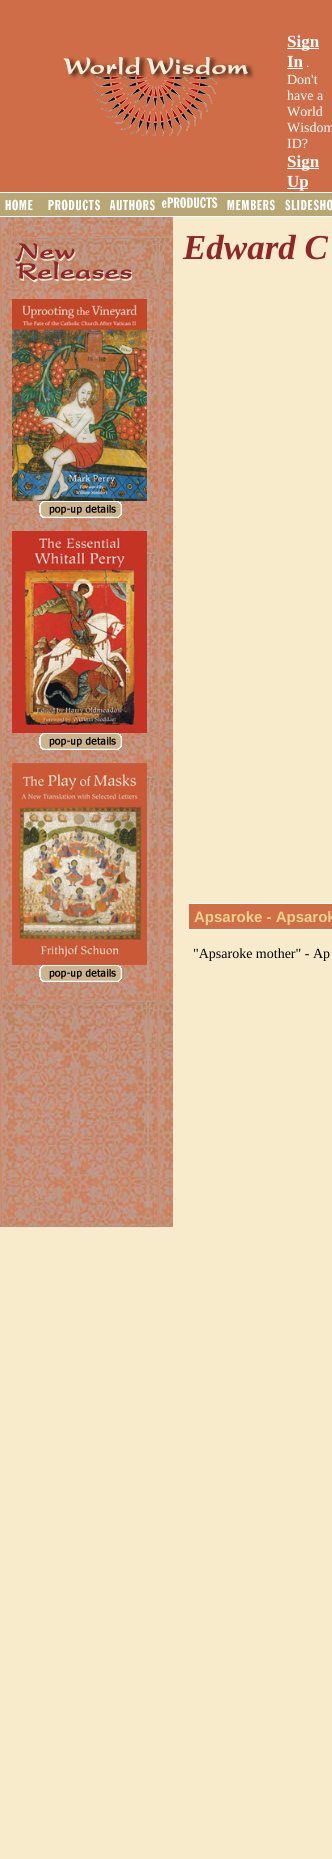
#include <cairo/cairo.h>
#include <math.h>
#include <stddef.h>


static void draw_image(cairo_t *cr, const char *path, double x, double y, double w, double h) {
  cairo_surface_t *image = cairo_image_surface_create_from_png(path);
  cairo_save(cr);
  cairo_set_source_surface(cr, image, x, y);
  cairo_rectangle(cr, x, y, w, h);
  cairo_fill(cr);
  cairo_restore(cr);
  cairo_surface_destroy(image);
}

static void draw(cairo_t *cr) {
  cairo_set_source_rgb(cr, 248 / 255.0, 235 / 255.0, 203 / 255.0);
  cairo_paint(cr);
  cairo_set_source_rgb(cr, 206 / 255.0, 109 / 255.0, 71 / 255.0);
  cairo_rectangle(cr, 0, 0, 332, 192);
  cairo_fill(cr);
  draw_image(cr, "images/1.png", 63, 57, 192, 79);
  cairo_set_source_rgb(cr, 1, 1, 1);
  cairo_rectangle(cr, 287, 48, 32, 1);
  cairo_fill(cr);
  cairo_rectangle(cr, 287, 68, 16, 1);
  cairo_fill(cr);
  cairo_rectangle(cr, 287, 168, 32, 1);
  cairo_fill(cr);
  cairo_rectangle(cr, 287, 188, 21, 1);
  cairo_fill(cr);
  cairo_set_source_rgb(cr, 184 / 255.0, 166 / 255.0, 117 / 255.0);
  cairo_rectangle(cr, 0, 193, 332, 23);
  cairo_fill(cr);
  cairo_set_source_rgb(cr, 1, 1, 1);
  cairo_rectangle(cr, 0, 192, 332, 1);
  cairo_fill(cr);
  cairo_rectangle(cr, 0, 216, 332, 1);
  cairo_fill(cr);
  draw_image(cr, "images/2.png", 5, 199, 28, 12);
  draw_image(cr, "images/3.png", 48, 199, 52, 12);
  draw_image(cr, "images/4.png", 110, 199, 45, 12);
  draw_image(cr, "images/5.png", 162, 197, 56, 11);
  draw_image(cr, "images/6.png", 227, 199, 48, 12);
  draw_image(cr, "images/7.png", 285, 199, 47, 12);
  draw_image(cr, "images/8.png", 0, 217, 173, 1010);
  draw_image(cr, "images/9.png", 9, 226, 155, 58);
  draw_image(cr, "images/10.png", 12, 299, 135, 202);
  draw_image(cr, "images/11.png", 39, 501, 83, 17);
  draw_image(cr, "images/12.png", 12, 531, 135, 202);
  draw_image(cr, "images/13.png", 39, 733, 83, 17);
  draw_image(cr, "images/14.png", 12, 763, 135, 202);
  draw_image(cr, "images/15.png", 39, 965, 83, 17);
  cairo_set_source_rgb(cr, 207 / 255.0, 110 / 255.0, 72 / 255.0);
  cairo_rectangle(cr, 189, 904, 143, 25);
  cairo_fill(cr);
  cairo_set_source_rgb(cr, 1, 1, 1);
  cairo_rectangle(cr, 189, 903, 143, 1);
  cairo_fill(cr);
  cairo_rectangle(cr, 189, 929, 143, 1);
  cairo_fill(cr);
  cairo_select_font_face(cr, "Liberation Serif", CAIRO_FONT_SLANT_NORMAL, CAIRO_FONT_WEIGHT_BOLD);
  cairo_set_font_size(cr, 17);
  cairo_move_to(cr, 287, 47);
  cairo_show_text(cr, "Sign");
  cairo_move_to(cr, 287, 67);
  cairo_show_text(cr, "In");
  cairo_select_font_face(cr, "Liberation Serif", CAIRO_FONT_SLANT_NORMAL, CAIRO_FONT_WEIGHT_NORMAL);
  cairo_set_font_size(cr, 14);
  cairo_move_to(cr, 306, 67);
  cairo_show_text(cr, ".");
  cairo_move_to(cr, 287, 84);
  cairo_show_text(cr, "Don't");
  cairo_move_to(cr, 287, 100);
  cairo_show_text(cr, "have a");
  cairo_move_to(cr, 287, 116);
  cairo_show_text(cr, "World");
  cairo_move_to(cr, 287, 132);
  cairo_show_text(cr, "Wisdom");
  cairo_move_to(cr, 287, 148);
  cairo_show_text(cr, "ID?");
  cairo_select_font_face(cr, "Liberation Serif", CAIRO_FONT_SLANT_NORMAL, CAIRO_FONT_WEIGHT_BOLD);
  cairo_set_font_size(cr, 17);
  cairo_move_to(cr, 287, 167);
  cairo_show_text(cr, "Sign");
  cairo_move_to(cr, 287, 187);
  cairo_show_text(cr, "Up");
  cairo_select_font_face(cr, "Liberation Serif", CAIRO_FONT_SLANT_ITALIC, CAIRO_FONT_WEIGHT_BOLD);
  cairo_set_font_size(cr, 35);
  cairo_set_source_rgb(cr, 143 / 255.0, 39 / 255.0, 38 / 255.0);
  cairo_move_to(cr, 183, 259);
  cairo_show_text(cr, "Edward C");
  cairo_select_font_face(cr, "Liberation Sans", CAIRO_FONT_SLANT_NORMAL, CAIRO_FONT_WEIGHT_BOLD);
  cairo_set_font_size(cr, 15);
  cairo_set_source_rgb(cr, 236 / 255.0, 210 / 255.0, 143 / 255.0);
  cairo_move_to(cr, 194, 922);
  cairo_show_text(cr, "Apsaroke - Apsarok");
  cairo_select_font_face(cr, "Liberation Serif", CAIRO_FONT_SLANT_NORMAL, CAIRO_FONT_WEIGHT_NORMAL);
  cairo_set_font_size(cr, 14);
  cairo_set_source_rgb(cr, 0, 0, 0);
  cairo_move_to(cr, 193, 958);
  cairo_show_text(cr, "\"Apsaroke mother\" - Ap");
}

int main(void) {
  cairo_surface_t *surface = cairo_image_surface_create(CAIRO_FORMAT_RGB24, 332, 1859);
  cairo_t *cr = cairo_create(surface);
  cairo_font_options_t *options = cairo_font_options_create();
  cairo_font_options_set_hint_metrics(options, CAIRO_HINT_METRICS_OFF);
  cairo_font_options_set_hint_style(options, CAIRO_HINT_STYLE_NONE);
  cairo_set_font_options(cr, options);
  cairo_set_miter_limit(cr, 4);
  draw(cr);
  cairo_surface_write_to_png(surface, "out.png");
  cairo_font_options_destroy(options);
  cairo_destroy(cr);
  cairo_surface_destroy(surface);
  return 0;
}
